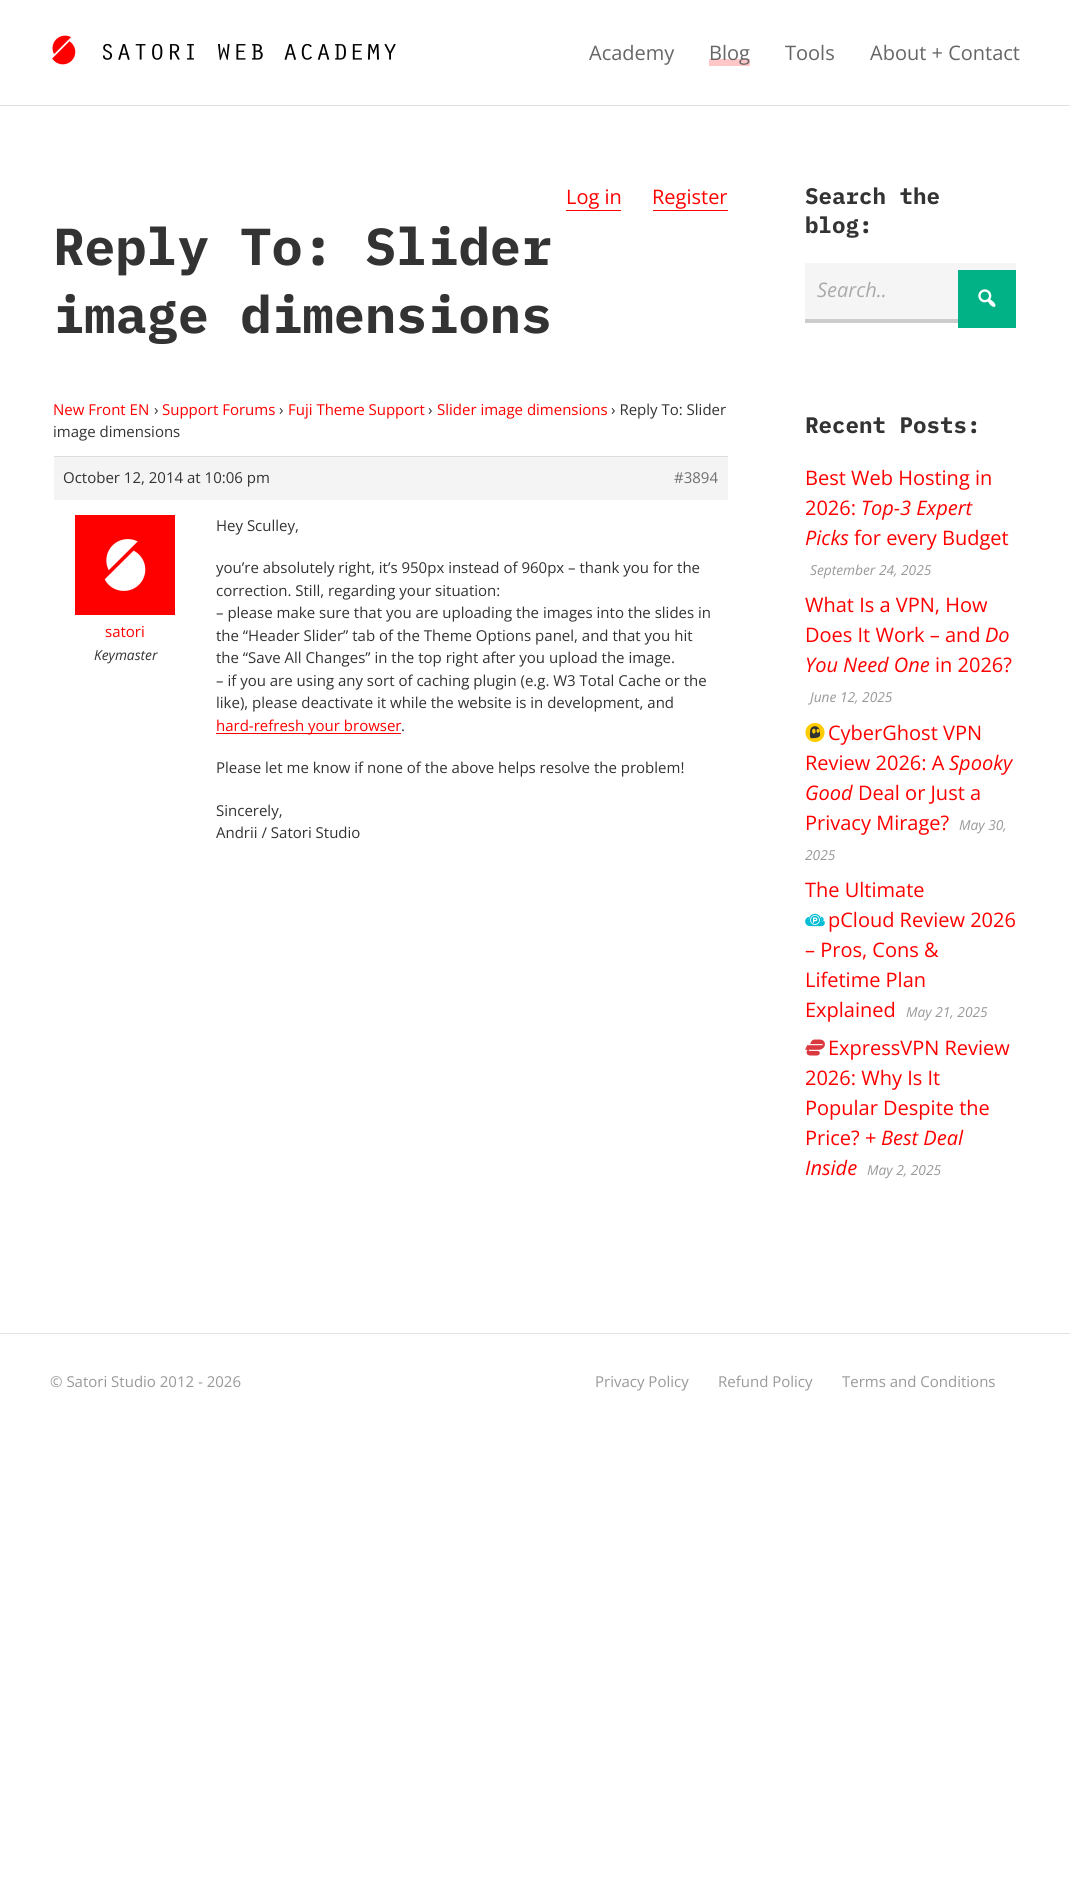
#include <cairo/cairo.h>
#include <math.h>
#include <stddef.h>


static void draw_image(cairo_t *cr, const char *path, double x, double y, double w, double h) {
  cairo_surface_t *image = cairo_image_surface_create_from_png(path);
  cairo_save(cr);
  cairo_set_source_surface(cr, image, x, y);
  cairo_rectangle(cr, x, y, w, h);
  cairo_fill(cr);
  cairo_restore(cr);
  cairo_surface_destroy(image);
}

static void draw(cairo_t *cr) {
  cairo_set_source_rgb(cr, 1, 1, 1);
  cairo_paint(cr);
  cairo_set_source_rgb(cr, 225 / 255.0, 225 / 255.0, 225 / 255.0);
  cairo_rectangle(cr, 0, 105, 1070, 1);
  cairo_fill(cr);
  draw_image(cr, "images/1.png", 52, 35, 24, 30);
  draw_image(cr, "images/2.png", 103, 44, 293, 16);
  cairo_set_source_rgb(cr, 1, 199 / 255.0, 199 / 255.0);
  cairo_rectangle(cr, 709, 59, 41, 7);
  cairo_fill(cr);
  cairo_set_source_rgb(cr, 1, 0, 0);
  cairo_rectangle(cr, 566, 210, 55, 1);
  cairo_fill(cr);
  cairo_rectangle(cr, 653, 210, 75, 1);
  cairo_fill(cr);
  cairo_set_source_rgb(cr, 244 / 255.0, 244 / 255.0, 244 / 255.0);
  cairo_rectangle(cr, 54, 457, 674, 43);
  cairo_fill(cr);
  cairo_set_source_rgb(cr, 221 / 255.0, 221 / 255.0, 221 / 255.0);
  cairo_rectangle(cr, 54, 456, 674, 1);
  cairo_fill(cr);
  draw_image(cr, "images/3.png", 75, 515, 100, 100);
  cairo_set_source_rgb(cr, 1, 0, 0);
  cairo_rectangle(cr, 216, 733, 185, 1);
  cairo_fill(cr);
  cairo_set_source_rgb(cr, 245 / 255.0, 245 / 255.0, 245 / 255.0);
  cairo_rectangle(cr, 805, 263, 211, 56);
  cairo_fill(cr);
  cairo_set_source_rgb(cr, 204 / 255.0, 204 / 255.0, 204 / 255.0);
  cairo_rectangle(cr, 805, 319, 153, 4);
  cairo_fill(cr);
  cairo_set_source_rgb(cr, 0, 178 / 255.0, 133 / 255.0);
  cairo_rectangle(cr, 958, 270, 58, 58);
  cairo_fill(cr);
  draw_image(cr, "images/4.png", 978, 289, 18, 18);
  draw_image(cr, "images/5.png", 805, 723, 20, 20);
  draw_image(cr, "images/6.png", 805, 913, 20, 14);
  draw_image(cr, "images/7.png", 805, 1039, 20, 17);
  cairo_set_source_rgb(cr, 228 / 255.0, 228 / 255.0, 228 / 255.0);
  cairo_rectangle(cr, 0, 1333, 1070, 1);
  cairo_fill(cr);
  cairo_select_font_face(cr, "Open Sans", CAIRO_FONT_SLANT_NORMAL, CAIRO_FONT_WEIGHT_NORMAL);
  cairo_set_font_size(cr, 20);
  cairo_set_source_rgb(cr, 102 / 255.0, 102 / 255.0, 102 / 255.0);
  cairo_move_to(cr, 589, 60);
  cairo_show_text(cr, "Academy");
  cairo_move_to(cr, 709, 60);
  cairo_show_text(cr, "Blog");
  cairo_move_to(cr, 785, 60);
  cairo_show_text(cr, "Tools");
  cairo_move_to(cr, 870, 60);
  cairo_show_text(cr, "About + Contact");
  cairo_set_source_rgb(cr, 1, 0, 0);
  cairo_move_to(cr, 566, 204);
  cairo_show_text(cr, "Log in");
  cairo_move_to(cr, 652, 204);
  cairo_show_text(cr, "Register");
  cairo_select_font_face(cr, "IBM Plex Mono", CAIRO_FONT_SLANT_NORMAL, CAIRO_FONT_WEIGHT_BOLD);
  cairo_set_font_size(cr, 52);
  cairo_set_source_rgb(cr, 51 / 255.0, 51 / 255.0, 51 / 255.0);
  cairo_move_to(cr, 53, 265);
  cairo_show_text(cr, "Reply To: Slider");
  cairo_move_to(cr, 53, 333);
  cairo_show_text(cr, "image dimensions");
  cairo_select_font_face(cr, "Open Sans", CAIRO_FONT_SLANT_NORMAL, CAIRO_FONT_WEIGHT_NORMAL);
  cairo_set_font_size(cr, 15);
  cairo_set_source_rgb(cr, 1, 0, 0);
  cairo_move_to(cr, 53, 415);
  cairo_show_text(cr, "New Front EN");
  cairo_set_source_rgb(cr, 51 / 255.0, 51 / 255.0, 51 / 255.0);
  cairo_move_to(cr, 154, 415);
  cairo_show_text(cr, "›");
  cairo_set_source_rgb(cr, 1, 0, 0);
  cairo_move_to(cr, 162, 415);
  cairo_show_text(cr, "Support Forums");
  cairo_set_source_rgb(cr, 51 / 255.0, 51 / 255.0, 51 / 255.0);
  cairo_move_to(cr, 279, 415);
  cairo_show_text(cr, "›");
  cairo_set_source_rgb(cr, 1, 0, 0);
  cairo_move_to(cr, 288, 415);
  cairo_show_text(cr, "Fuji Theme Support");
  cairo_set_source_rgb(cr, 51 / 255.0, 51 / 255.0, 51 / 255.0);
  cairo_move_to(cr, 428, 415);
  cairo_show_text(cr, "›");
  cairo_set_source_rgb(cr, 1, 0, 0);
  cairo_move_to(cr, 437, 415);
  cairo_show_text(cr, "Slider image dimensions");
  cairo_set_source_rgb(cr, 51 / 255.0, 51 / 255.0, 51 / 255.0);
  cairo_move_to(cr, 611, 415);
  cairo_show_text(cr, "› Reply To: Slider");
  cairo_move_to(cr, 53, 437);
  cairo_show_text(cr, "image dimensions");
  cairo_move_to(cr, 63, 483);
  cairo_show_text(cr, "October 12, 2014 at 10:06 pm");
  cairo_set_source_rgb(cr, 112 / 255.0, 112 / 255.0, 112 / 255.0);
  cairo_move_to(cr, 674, 483);
  cairo_show_text(cr, "#3894");
  cairo_set_source_rgb(cr, 1, 0, 0);
  cairo_move_to(cr, 105, 637);
  cairo_show_text(cr, "satori");
  cairo_select_font_face(cr, "Open Sans", CAIRO_FONT_SLANT_ITALIC, CAIRO_FONT_WEIGHT_NORMAL);
  cairo_set_font_size(cr, 13.75);
  cairo_set_source_rgb(cr, 51 / 255.0, 51 / 255.0, 51 / 255.0);
  cairo_move_to(cr, 94, 660);
  cairo_show_text(cr, "Keymaster");
  cairo_select_font_face(cr, "Open Sans", CAIRO_FONT_SLANT_NORMAL, CAIRO_FONT_WEIGHT_NORMAL);
  cairo_set_font_size(cr, 15);
  cairo_move_to(cr, 216, 531);
  cairo_show_text(cr, "Hey Sculley,");
  cairo_move_to(cr, 216, 573);
  cairo_show_text(cr, "you’re absolutely right, it’s 950px instead of 960px – thank you for the");
  cairo_move_to(cr, 216, 596);
  cairo_show_text(cr, "correction. Still, regarding your situation:");
  cairo_move_to(cr, 216, 618);
  cairo_show_text(cr, "– please make sure that you are uploading the images into the slides in");
  cairo_move_to(cr, 216, 641);
  cairo_show_text(cr, "the “Header Slider” tab of the Theme Options panel, and that you hit");
  cairo_move_to(cr, 216, 663);
  cairo_show_text(cr, "the “Save All Changes” in the top right after you upload the image.");
  cairo_move_to(cr, 216, 686);
  cairo_show_text(cr, "– if you are using any sort of caching plugin (e.g. W3 Total Cache or the");
  cairo_move_to(cr, 216, 708);
  cairo_show_text(cr, "like), please deactivate it while the website is in development, and");
  cairo_set_source_rgb(cr, 1, 0, 0);
  cairo_move_to(cr, 216, 731);
  cairo_show_text(cr, "hard-refresh your browser");
  cairo_set_source_rgb(cr, 51 / 255.0, 51 / 255.0, 51 / 255.0);
  cairo_move_to(cr, 401, 731);
  cairo_show_text(cr, ".");
  cairo_move_to(cr, 216, 773);
  cairo_show_text(cr, "Please let me know if none of the above helps resolve the problem!");
  cairo_move_to(cr, 216, 816);
  cairo_show_text(cr, "Sincerely,");
  cairo_move_to(cr, 216, 838);
  cairo_show_text(cr, "Andrii / Satori Studio");
  cairo_select_font_face(cr, "IBM Plex Mono", CAIRO_FONT_SLANT_NORMAL, CAIRO_FONT_WEIGHT_BOLD);
  cairo_set_font_size(cr, 22.5);
  cairo_move_to(cr, 805, 204);
  cairo_show_text(cr, "Search the");
  cairo_move_to(cr, 805, 233);
  cairo_show_text(cr, "blog:");
  cairo_select_font_face(cr, "Open Sans", CAIRO_FONT_SLANT_ITALIC, CAIRO_FONT_WEIGHT_NORMAL);
  cairo_set_font_size(cr, 20);
  cairo_set_source_rgb(cr, 170 / 255.0, 170 / 255.0, 170 / 255.0);
  cairo_move_to(cr, 817, 297);
  cairo_show_text(cr, "Search..");
  cairo_select_font_face(cr, "IBM Plex Mono", CAIRO_FONT_SLANT_NORMAL, CAIRO_FONT_WEIGHT_BOLD);
  cairo_set_font_size(cr, 22.5);
  cairo_set_source_rgb(cr, 51 / 255.0, 51 / 255.0, 51 / 255.0);
  cairo_move_to(cr, 805, 433);
  cairo_show_text(cr, "Recent Posts:");
  cairo_select_font_face(cr, "Open Sans", CAIRO_FONT_SLANT_NORMAL, CAIRO_FONT_WEIGHT_NORMAL);
  cairo_set_font_size(cr, 20);
  cairo_set_source_rgb(cr, 1, 0, 0);
  cairo_move_to(cr, 805, 485);
  cairo_show_text(cr, "Best Web Hosting in");
  cairo_move_to(cr, 805, 515);
  cairo_show_text(cr, "2026:");
  cairo_select_font_face(cr, "Open Sans", CAIRO_FONT_SLANT_ITALIC, CAIRO_FONT_WEIGHT_NORMAL);
  cairo_move_to(cr, 861, 515);
  cairo_show_text(cr, "Top-3 Expert");
  cairo_move_to(cr, 805, 545);
  cairo_show_text(cr, "Picks");
  cairo_select_font_face(cr, "Open Sans", CAIRO_FONT_SLANT_NORMAL, CAIRO_FONT_WEIGHT_NORMAL);
  cairo_move_to(cr, 854, 545);
  cairo_show_text(cr, "for every Budget");
  cairo_select_font_face(cr, "Open Sans", CAIRO_FONT_SLANT_ITALIC, CAIRO_FONT_WEIGHT_NORMAL);
  cairo_set_font_size(cr, 13.75);
  cairo_set_source_rgb(cr, 153 / 255.0, 153 / 255.0, 153 / 255.0);
  cairo_move_to(cr, 810, 575);
  cairo_show_text(cr, "September 24, 2025");
  cairo_select_font_face(cr, "Open Sans", CAIRO_FONT_SLANT_NORMAL, CAIRO_FONT_WEIGHT_NORMAL);
  cairo_set_font_size(cr, 20);
  cairo_set_source_rgb(cr, 1, 0, 0);
  cairo_move_to(cr, 805, 612);
  cairo_show_text(cr, "What Is a VPN, How");
  cairo_move_to(cr, 805, 642);
  cairo_show_text(cr, "Does It Work – and");
  cairo_select_font_face(cr, "Open Sans", CAIRO_FONT_SLANT_ITALIC, CAIRO_FONT_WEIGHT_NORMAL);
  cairo_move_to(cr, 985, 642);
  cairo_show_text(cr, "Do");
  cairo_move_to(cr, 805, 672);
  cairo_show_text(cr, "You Need One");
  cairo_select_font_face(cr, "Open Sans", CAIRO_FONT_SLANT_NORMAL, CAIRO_FONT_WEIGHT_NORMAL);
  cairo_move_to(cr, 935, 672);
  cairo_show_text(cr, "in 2026?");
  cairo_select_font_face(cr, "Open Sans", CAIRO_FONT_SLANT_ITALIC, CAIRO_FONT_WEIGHT_NORMAL);
  cairo_set_font_size(cr, 13.75);
  cairo_set_source_rgb(cr, 153 / 255.0, 153 / 255.0, 153 / 255.0);
  cairo_move_to(cr, 810, 702);
  cairo_show_text(cr, "June 12, 2025");
  cairo_select_font_face(cr, "Open Sans", CAIRO_FONT_SLANT_NORMAL, CAIRO_FONT_WEIGHT_NORMAL);
  cairo_set_font_size(cr, 20);
  cairo_set_source_rgb(cr, 1, 0, 0);
  cairo_move_to(cr, 828, 740);
  cairo_show_text(cr, "CyberGhost VPN");
  cairo_move_to(cr, 805, 770);
  cairo_show_text(cr, "Review 2026: A");
  cairo_select_font_face(cr, "Open Sans", CAIRO_FONT_SLANT_ITALIC, CAIRO_FONT_WEIGHT_NORMAL);
  cairo_move_to(cr, 949, 770);
  cairo_show_text(cr, "Spooky");
  cairo_move_to(cr, 805, 800);
  cairo_show_text(cr, "Good");
  cairo_select_font_face(cr, "Open Sans", CAIRO_FONT_SLANT_NORMAL, CAIRO_FONT_WEIGHT_NORMAL);
  cairo_move_to(cr, 858, 800);
  cairo_show_text(cr, "Deal or Just a");
  cairo_move_to(cr, 805, 830);
  cairo_show_text(cr, "Privacy Mirage?");
  cairo_select_font_face(cr, "Open Sans", CAIRO_FONT_SLANT_ITALIC, CAIRO_FONT_WEIGHT_NORMAL);
  cairo_set_font_size(cr, 13.75);
  cairo_set_source_rgb(cr, 153 / 255.0, 153 / 255.0, 153 / 255.0);
  cairo_move_to(cr, 959, 830);
  cairo_show_text(cr, "May 30,");
  cairo_move_to(cr, 805, 860);
  cairo_show_text(cr, "2025");
  cairo_select_font_face(cr, "Open Sans", CAIRO_FONT_SLANT_NORMAL, CAIRO_FONT_WEIGHT_NORMAL);
  cairo_set_font_size(cr, 20);
  cairo_set_source_rgb(cr, 1, 0, 0);
  cairo_move_to(cr, 805, 897);
  cairo_show_text(cr, "The Ultimate");
  cairo_move_to(cr, 828, 927);
  cairo_show_text(cr, "pCloud Review 2026");
  cairo_move_to(cr, 805, 957);
  cairo_show_text(cr, "– Pros, Cons &");
  cairo_move_to(cr, 805, 987);
  cairo_show_text(cr, "Lifetime Plan");
  cairo_move_to(cr, 805, 1017);
  cairo_show_text(cr, "Explained");
  cairo_select_font_face(cr, "Open Sans", CAIRO_FONT_SLANT_ITALIC, CAIRO_FONT_WEIGHT_NORMAL);
  cairo_set_font_size(cr, 13.75);
  cairo_set_source_rgb(cr, 153 / 255.0, 153 / 255.0, 153 / 255.0);
  cairo_move_to(cr, 906, 1017);
  cairo_show_text(cr, "May 21, 2025");
  cairo_select_font_face(cr, "Open Sans", CAIRO_FONT_SLANT_NORMAL, CAIRO_FONT_WEIGHT_NORMAL);
  cairo_set_font_size(cr, 20);
  cairo_set_source_rgb(cr, 1, 0, 0);
  cairo_move_to(cr, 828, 1055);
  cairo_show_text(cr, "ExpressVPN Review");
  cairo_move_to(cr, 805, 1085);
  cairo_show_text(cr, "2026: Why Is It");
  cairo_move_to(cr, 805, 1115);
  cairo_show_text(cr, "Popular Despite the");
  cairo_move_to(cr, 805, 1145);
  cairo_show_text(cr, "Price? +");
  cairo_select_font_face(cr, "Open Sans", CAIRO_FONT_SLANT_ITALIC, CAIRO_FONT_WEIGHT_NORMAL);
  cairo_move_to(cr, 881, 1145);
  cairo_show_text(cr, "Best Deal");
  cairo_move_to(cr, 805, 1175);
  cairo_show_text(cr, "Inside");
  cairo_set_font_size(cr, 13.75);
  cairo_set_source_rgb(cr, 153 / 255.0, 153 / 255.0, 153 / 255.0);
  cairo_move_to(cr, 867, 1175);
  cairo_show_text(cr, "May 2, 2025");
  cairo_select_font_face(cr, "Open Sans", CAIRO_FONT_SLANT_NORMAL, CAIRO_FONT_WEIGHT_NORMAL);
  cairo_set_font_size(cr, 15);
  cairo_move_to(cr, 50, 1387);
  cairo_show_text(cr, "© Satori Studio 2012 - 2026");
  cairo_move_to(cr, 595, 1387);
  cairo_show_text(cr, "Privacy Policy");
  cairo_move_to(cr, 718, 1387);
  cairo_show_text(cr, "Refund Policy");
  cairo_move_to(cr, 842, 1387);
  cairo_show_text(cr, "Terms and Conditions");
}

int main(void) {
  cairo_surface_t *surface = cairo_image_surface_create(CAIRO_FORMAT_RGB24, 1070, 1884);
  cairo_t *cr = cairo_create(surface);
  cairo_font_options_t *options = cairo_font_options_create();
  cairo_font_options_set_hint_metrics(options, CAIRO_HINT_METRICS_OFF);
  cairo_font_options_set_hint_style(options, CAIRO_HINT_STYLE_NONE);
  cairo_set_font_options(cr, options);
  cairo_set_miter_limit(cr, 4);
  draw(cr);
  cairo_surface_write_to_png(surface, "out.png");
  cairo_font_options_destroy(options);
  cairo_destroy(cr);
  cairo_surface_destroy(surface);
  return 0;
}
